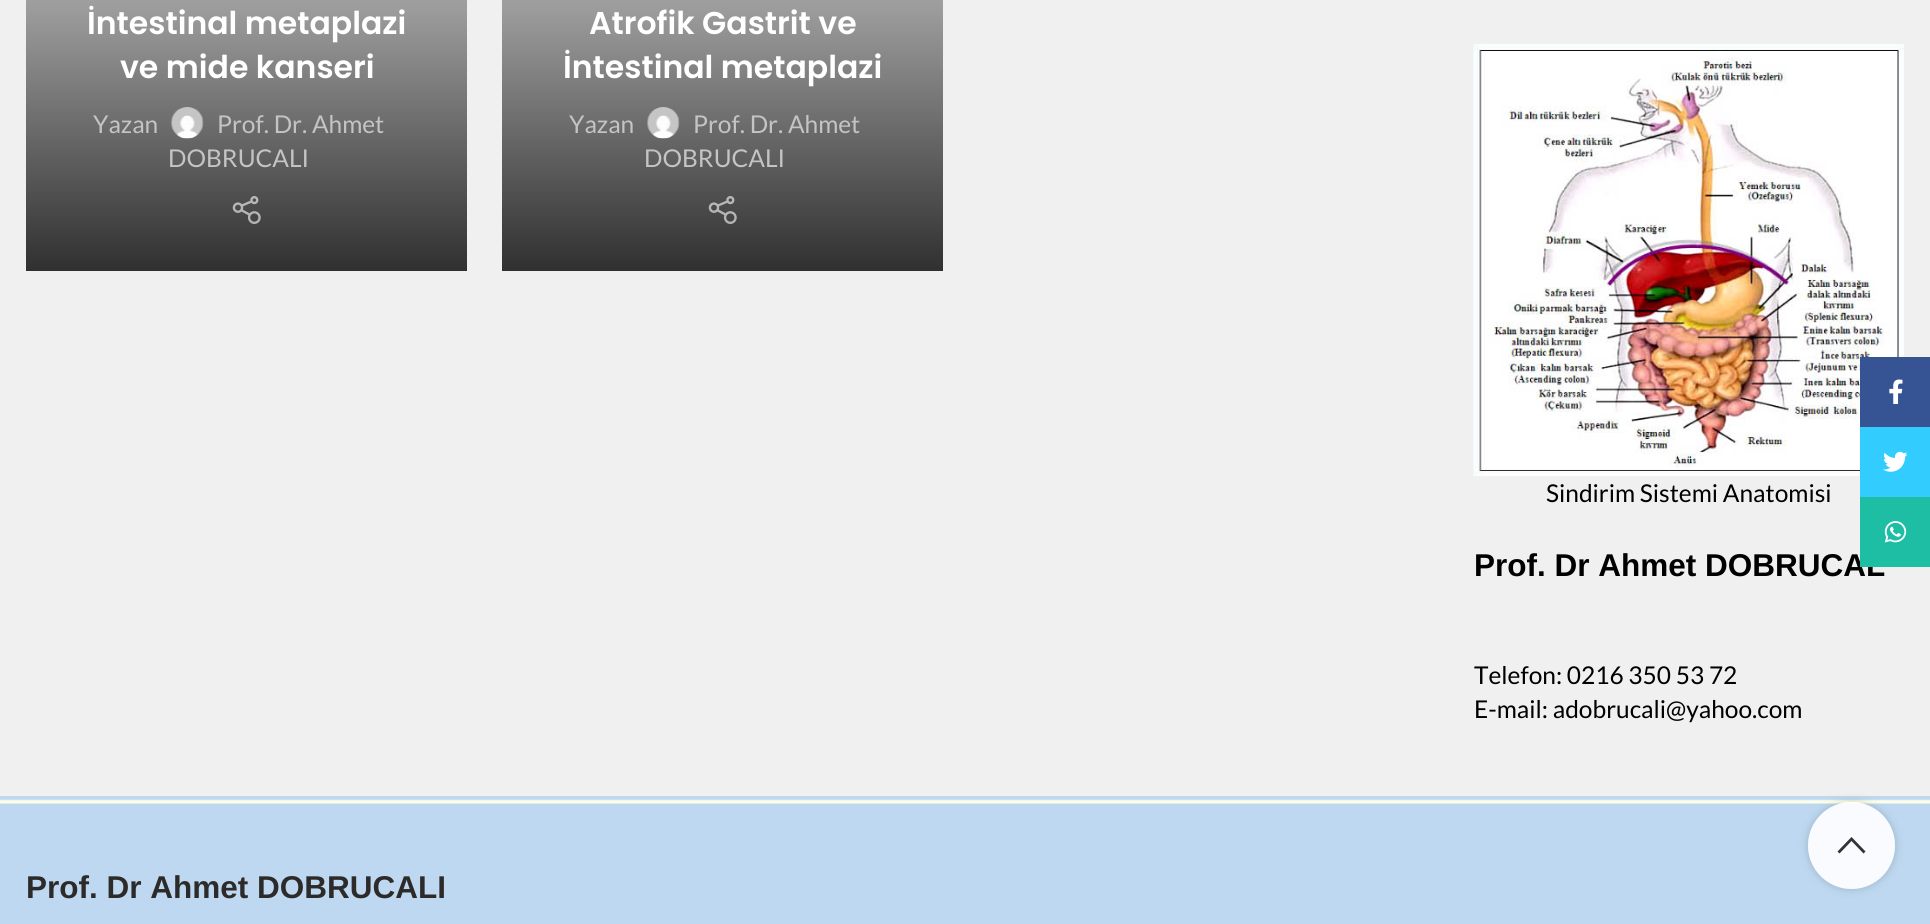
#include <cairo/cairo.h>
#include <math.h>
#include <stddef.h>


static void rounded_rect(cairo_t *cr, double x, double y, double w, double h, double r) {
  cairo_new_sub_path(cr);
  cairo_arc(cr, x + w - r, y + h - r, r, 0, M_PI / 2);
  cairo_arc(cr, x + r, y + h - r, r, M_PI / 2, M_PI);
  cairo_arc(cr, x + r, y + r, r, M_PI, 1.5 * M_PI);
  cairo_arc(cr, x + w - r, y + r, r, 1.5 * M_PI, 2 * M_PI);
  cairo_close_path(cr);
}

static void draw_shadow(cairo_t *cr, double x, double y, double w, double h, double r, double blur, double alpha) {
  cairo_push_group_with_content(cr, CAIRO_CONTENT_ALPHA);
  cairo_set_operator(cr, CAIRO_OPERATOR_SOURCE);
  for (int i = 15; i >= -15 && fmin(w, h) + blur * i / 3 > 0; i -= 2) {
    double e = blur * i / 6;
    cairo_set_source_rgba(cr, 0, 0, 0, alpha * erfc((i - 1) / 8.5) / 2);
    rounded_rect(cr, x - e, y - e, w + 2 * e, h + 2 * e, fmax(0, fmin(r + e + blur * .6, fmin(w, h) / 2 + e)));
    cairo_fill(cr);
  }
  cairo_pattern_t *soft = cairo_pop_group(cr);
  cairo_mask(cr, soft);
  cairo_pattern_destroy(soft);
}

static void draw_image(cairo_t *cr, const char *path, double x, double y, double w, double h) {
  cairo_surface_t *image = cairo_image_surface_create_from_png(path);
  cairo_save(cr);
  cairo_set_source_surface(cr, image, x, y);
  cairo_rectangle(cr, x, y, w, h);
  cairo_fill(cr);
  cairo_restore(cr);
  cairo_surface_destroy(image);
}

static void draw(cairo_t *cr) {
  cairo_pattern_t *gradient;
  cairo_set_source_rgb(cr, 189 / 255.0, 216 / 255.0, 240 / 255.0);
  cairo_paint(cr);
  cairo_set_source_rgb(cr, 240 / 255.0, 240 / 255.0, 240 / 255.0);
  cairo_rectangle(cr, 0, 0, 1930, 796);
  cairo_fill(cr);
  gradient = cairo_pattern_create_linear(247, -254, 247, 271);
  cairo_pattern_add_color_stop_rgba(gradient, 0.05, 240 / 255.0, 240 / 255.0, 240 / 255.0, 1);
  cairo_pattern_add_color_stop_rgba(gradient, 0.5, 156 / 255.0, 156 / 255.0, 156 / 255.0, 1);
  cairo_pattern_add_color_stop_rgba(gradient, 1, 48 / 255.0, 48 / 255.0, 48 / 255.0, 1);
  cairo_set_source(cr, gradient);
  cairo_pattern_destroy(gradient);
  cairo_rectangle(cr, 26, 0, 441, 271);
  cairo_fill(cr);
  draw_image(cr, "images/1.png", 171, 107, 33, 32);
  draw_image(cr, "images/2.png", 232, 196, 29, 28);
  gradient = cairo_pattern_create_linear(723, -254, 723, 271);
  cairo_pattern_add_color_stop_rgba(gradient, 0.05, 240 / 255.0, 240 / 255.0, 240 / 255.0, 1);
  cairo_pattern_add_color_stop_rgba(gradient, 0.5, 156 / 255.0, 156 / 255.0, 156 / 255.0, 1);
  cairo_pattern_add_color_stop_rgba(gradient, 1, 48 / 255.0, 48 / 255.0, 48 / 255.0, 1);
  cairo_set_source(cr, gradient);
  cairo_pattern_destroy(gradient);
  cairo_rectangle(cr, 502, 0, 441, 271);
  cairo_fill(cr);
  draw_image(cr, "images/1.png", 647, 107, 33, 32);
  draw_image(cr, "images/2.png", 708, 196, 29, 28);
  draw_image(cr, "images/3.png", 1473, 44, 431, 432);
  cairo_set_source_rgb(cr, 54 / 255.0, 84 / 255.0, 147 / 255.0);
  cairo_rectangle(cr, 1860, 357, 70, 70);
  cairo_fill(cr);
  draw_image(cr, "images/4.png", 1889, 379, 14, 25);
  cairo_set_source_rgb(cr, 51 / 255.0, 204 / 255.0, 1);
  cairo_rectangle(cr, 1860, 427, 70, 70);
  cairo_fill(cr);
  draw_image(cr, "images/5.png", 1883, 451, 25, 21);
  draw_image(cr, "images/7.png", 0, 799, 1930, 5);
  cairo_save(cr);
  cairo_set_fill_rule(cr, CAIRO_FILL_RULE_EVEN_ODD);
  cairo_new_path(cr);
  cairo_move_to(cr, 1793, 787);
  cairo_line_to(cr, 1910, 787);
  cairo_line_to(cr, 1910, 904);
  cairo_line_to(cr, 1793, 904);
  cairo_close_path(cr);
  cairo_move_to(cr, 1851.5, 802);
  cairo_curve_to(cr, 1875.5, 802, 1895, 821.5, 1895, 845.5);
  cairo_curve_to(cr, 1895, 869.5, 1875.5, 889, 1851.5, 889);
  cairo_curve_to(cr, 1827.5, 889, 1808, 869.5, 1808, 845.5);
  cairo_curve_to(cr, 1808, 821.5, 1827.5, 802, 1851.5, 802);
  cairo_close_path(cr);
  cairo_clip(cr);
  cairo_set_source_rgb(cr, 0, 0, 0);
  draw_shadow(cr, 1808, 802, 87, 87, 43.5, 4.5, 0.17);
  cairo_restore(cr);
  cairo_set_source_rgba(cr, 1, 1, 1, 0.9);
  cairo_arc(cr, 1851.5, 845.5, 43.5, 0, 2 * M_PI);
  cairo_fill(cr);
  cairo_set_source_rgb(cr, 51 / 255.0, 51 / 255.0, 51 / 255.0);
  cairo_new_path(cr);
  cairo_move_to(cr, 1851.5, 837);
  cairo_line_to(cr, 1865.5, 851.5);
  cairo_line_to(cr, 1863.5, 853.5);
  cairo_line_to(cr, 1851.5, 841);
  cairo_line_to(cr, 1839.5, 853.5);
  cairo_line_to(cr, 1837.5, 851.5);
  cairo_close_path(cr);
  cairo_fill(cr);
  cairo_select_font_face(cr, "Poppins SemiBold", CAIRO_FONT_SLANT_NORMAL, CAIRO_FONT_WEIGHT_NORMAL);
  cairo_set_font_size(cr, 31.5);
  cairo_set_source_rgb(cr, 1, 1, 1);
  cairo_move_to(cr, 87, 34);
  cairo_show_text(cr, "İntestinal metaplazi");
  cairo_move_to(cr, 120, 78);
  cairo_show_text(cr, "ve mide kanseri");
  cairo_select_font_face(cr, "Lato", CAIRO_FONT_SLANT_NORMAL, CAIRO_FONT_WEIGHT_NORMAL);
  cairo_set_font_size(cr, 24.5);
  cairo_set_source_rgb(cr, 196 / 255.0, 196 / 255.0, 196 / 255.0);
  cairo_move_to(cr, 93, 133);
  cairo_show_text(cr, "Yazan");
  cairo_move_to(cr, 217, 133);
  cairo_show_text(cr, "Prof. Dr. Ahmet");
  cairo_move_to(cr, 168, 167);
  cairo_show_text(cr, "DOBRUCALI");
  cairo_select_font_face(cr, "Poppins SemiBold", CAIRO_FONT_SLANT_NORMAL, CAIRO_FONT_WEIGHT_NORMAL);
  cairo_set_font_size(cr, 31.5);
  cairo_set_source_rgb(cr, 1, 1, 1);
  cairo_move_to(cr, 589, 34);
  cairo_show_text(cr, "Atrofik Gastrit ve");
  cairo_move_to(cr, 563, 78);
  cairo_show_text(cr, "İntestinal metaplazi");
  cairo_select_font_face(cr, "Lato", CAIRO_FONT_SLANT_NORMAL, CAIRO_FONT_WEIGHT_NORMAL);
  cairo_set_font_size(cr, 24.5);
  cairo_set_source_rgb(cr, 196 / 255.0, 196 / 255.0, 196 / 255.0);
  cairo_move_to(cr, 569, 133);
  cairo_show_text(cr, "Yazan");
  cairo_move_to(cr, 693, 133);
  cairo_show_text(cr, "Prof. Dr. Ahmet");
  cairo_move_to(cr, 644, 167);
  cairo_show_text(cr, "DOBRUCALI");
  cairo_set_source_rgb(cr, 0, 0, 0);
  cairo_move_to(cr, 1546, 502);
  cairo_show_text(cr, "Sindirim Sistemi Anatomisi");
  cairo_select_font_face(cr, "Liberation Sans", CAIRO_FONT_SLANT_NORMAL, CAIRO_FONT_WEIGHT_BOLD);
  cairo_set_font_size(cr, 31.5);
  cairo_move_to(cr, 1474, 576);
  cairo_show_text(cr, "Prof. Dr Ahmet DOBRUCAL");
  cairo_select_font_face(cr, "Lato", CAIRO_FONT_SLANT_NORMAL, CAIRO_FONT_WEIGHT_NORMAL);
  cairo_set_font_size(cr, 24.5);
  cairo_move_to(cr, 1474, 684);
  cairo_show_text(cr, "Telefon: 0216 350 53 72");
  cairo_move_to(cr, 1474, 718);
  cairo_show_text(cr, "E-mail: adobrucali@yahoo.com");
  cairo_set_source_rgb(cr, 30 / 255.0, 190 / 255.0, 165 / 255.0);
  cairo_rectangle(cr, 1860, 497, 70, 70);
  cairo_fill(cr);
  draw_image(cr, "images/6.png", 1884, 521, 23, 22);
  cairo_select_font_face(cr, "Liberation Sans", CAIRO_FONT_SLANT_NORMAL, CAIRO_FONT_WEIGHT_BOLD);
  cairo_set_font_size(cr, 31.5);
  cairo_set_source_rgb(cr, 45 / 255.0, 42 / 255.0, 42 / 255.0);
  cairo_move_to(cr, 26, 898);
  cairo_show_text(cr, "Prof. Dr Ahmet DOBRUCALI");
}

int main(void) {
  cairo_surface_t *surface = cairo_image_surface_create(CAIRO_FORMAT_RGB24, 1930, 924);
  cairo_t *cr = cairo_create(surface);
  cairo_font_options_t *options = cairo_font_options_create();
  cairo_font_options_set_hint_metrics(options, CAIRO_HINT_METRICS_OFF);
  cairo_font_options_set_hint_style(options, CAIRO_HINT_STYLE_NONE);
  cairo_set_font_options(cr, options);
  cairo_set_miter_limit(cr, 4);
  draw(cr);
  cairo_surface_write_to_png(surface, "out.png");
  cairo_font_options_destroy(options);
  cairo_destroy(cr);
  cairo_surface_destroy(surface);
  return 0;
}
